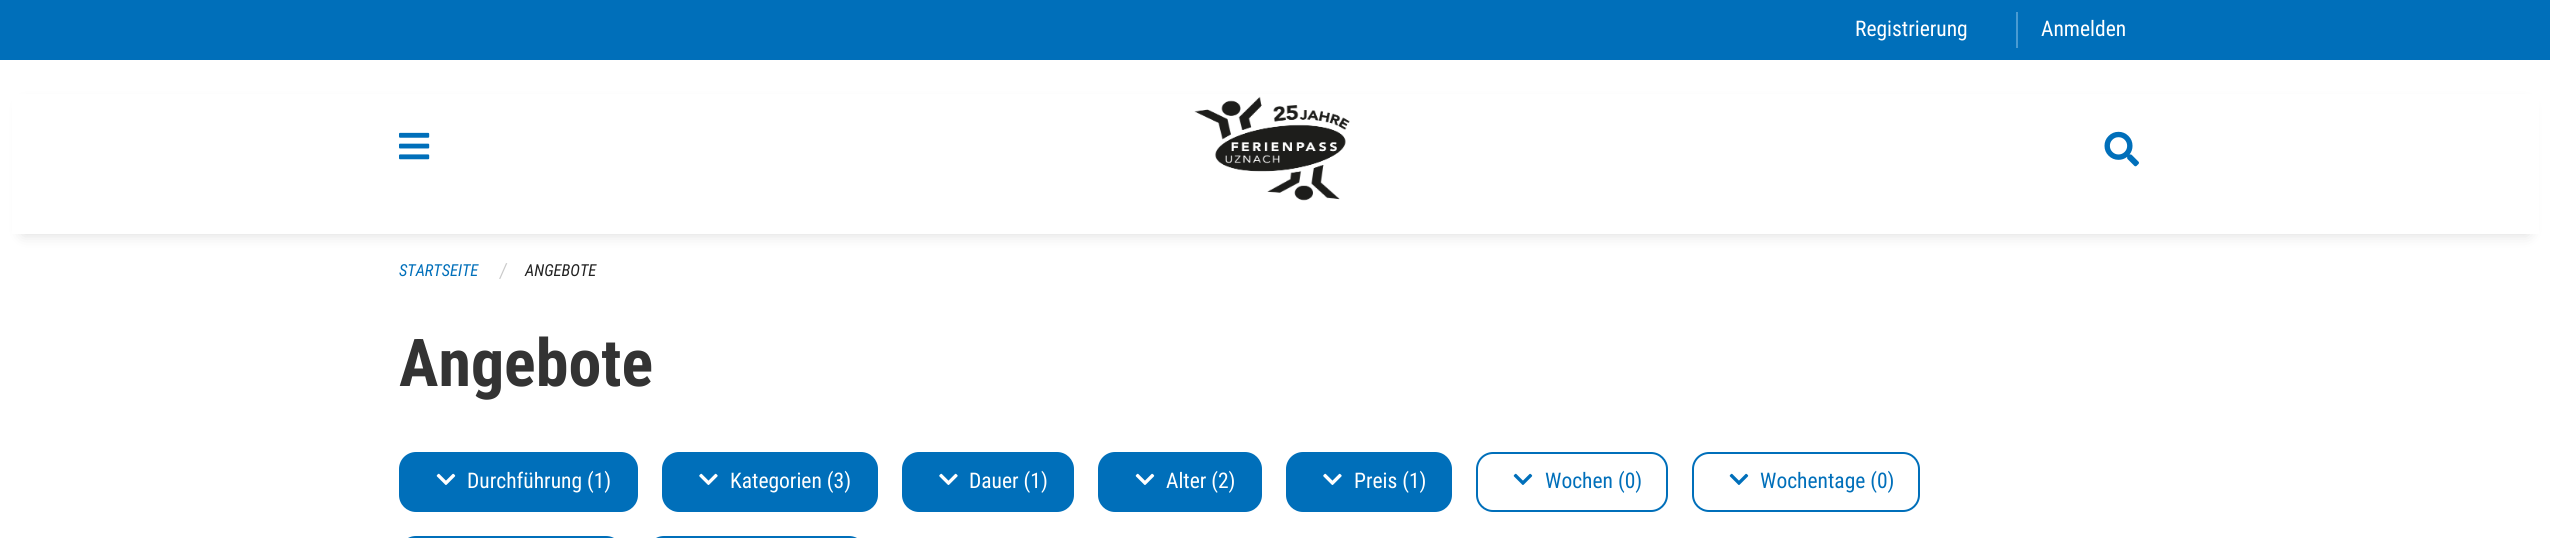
#include <cairo/cairo.h>
#include <math.h>
#include <stddef.h>


static void rounded_rect(cairo_t *cr, double x, double y, double w, double h, double r) {
  cairo_new_sub_path(cr);
  cairo_arc(cr, x + w - r, y + h - r, r, 0, M_PI / 2);
  cairo_arc(cr, x + r, y + h - r, r, M_PI / 2, M_PI);
  cairo_arc(cr, x + r, y + r, r, M_PI, 1.5 * M_PI);
  cairo_arc(cr, x + w - r, y + r, r, 1.5 * M_PI, 2 * M_PI);
  cairo_close_path(cr);
}

static void draw_shadow(cairo_t *cr, double x, double y, double w, double h, double r, double blur, double alpha) {
  cairo_push_group_with_content(cr, CAIRO_CONTENT_ALPHA);
  cairo_set_operator(cr, CAIRO_OPERATOR_SOURCE);
  for (int i = 15; i >= -15 && fmin(w, h) + blur * i / 3 > 0; i -= 2) {
    double e = blur * i / 6;
    cairo_set_source_rgba(cr, 0, 0, 0, alpha * erfc((i - 1) / 8.5) / 2);
    rounded_rect(cr, x - e, y - e, w + 2 * e, h + 2 * e, fmax(0, fmin(r + e + blur * .6, fmin(w, h) / 2 + e)));
    cairo_fill(cr);
  }
  cairo_pattern_t *soft = cairo_pop_group(cr);
  cairo_mask(cr, soft);
  cairo_pattern_destroy(soft);
}

static void draw_image(cairo_t *cr, const char *path, double x, double y, double w, double h) {
  cairo_surface_t *image = cairo_image_surface_create_from_png(path);
  cairo_save(cr);
  cairo_set_source_surface(cr, image, x, y);
  cairo_rectangle(cr, x, y, w, h);
  cairo_fill(cr);
  cairo_restore(cr);
  cairo_surface_destroy(image);
}

static void draw(cairo_t *cr) {
  cairo_set_source_rgb(cr, 1, 1, 1);
  cairo_paint(cr);
  cairo_set_source_rgb(cr, 0, 111 / 255.0, 186 / 255.0);
  cairo_rectangle(cr, 0, 0, 2550, 60);
  cairo_fill(cr);
  cairo_set_source_rgb(cr, 74 / 255.0, 155 / 255.0, 210 / 255.0);
  cairo_rectangle(cr, 2016, 12, 2, 36);
  cairo_fill(cr);
  cairo_set_source_rgb(cr, 0, 0, 0);
  draw_shadow(cr, 23, 105, 2505, 129, 0, 7.5, 0.15);
  cairo_set_source_rgb(cr, 1, 1, 1);
  cairo_rectangle(cr, 12, 94, 2527, 140);
  cairo_fill(cr);
  draw_image(cr, "images/1.png", 399, 132, 31, 28);
  draw_image(cr, "images/2.png", 1194, 96, 156, 105);
  draw_image(cr, "images/3.png", 2104, 131, 35, 36);
  cairo_set_source_rgb(cr, 0, 111 / 255.0, 186 / 255.0);
  rounded_rect(cr, 400, 453, 237, 58, 16);
  cairo_fill_preserve(cr);
  cairo_stroke(cr);
  draw_image(cr, "images/4.png", 436, 473, 20, 12);
  rounded_rect(cr, 663, 453, 214, 58, 16);
  cairo_fill_preserve(cr);
  cairo_stroke(cr);
  draw_image(cr, "images/5.png", 699, 473, 19, 12);
  rounded_rect(cr, 903, 453, 170, 58, 16);
  cairo_fill_preserve(cr);
  cairo_stroke(cr);
  draw_image(cr, "images/5.png", 939, 473, 19, 12);
  rounded_rect(cr, 1099, 453, 162, 58, 16);
  cairo_fill_preserve(cr);
  cairo_stroke(cr);
  draw_image(cr, "images/4.png", 1135, 473, 20, 12);
  rounded_rect(cr, 1287, 453, 164, 58, 16);
  cairo_fill_preserve(cr);
  cairo_stroke(cr);
  draw_image(cr, "images/5.png", 1323, 473, 19, 12);
  rounded_rect(cr, 1477, 453, 190, 58, 16);
  cairo_stroke(cr);
  draw_image(cr, "images/6.png", 1513, 473, 20, 12);
  rounded_rect(cr, 1693, 453, 226, 58, 16);
  cairo_stroke(cr);
  draw_image(cr, "images/6.png", 1729, 473, 20, 12);
  rounded_rect(cr, 400, 537, 222, 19, 16);
  cairo_stroke(cr);
  rounded_rect(cr, 648, 537, 217, 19, 16);
  cairo_stroke(cr);
  cairo_select_font_face(cr, "Roboto Condensed", CAIRO_FONT_SLANT_NORMAL, CAIRO_FONT_WEIGHT_NORMAL);
  cairo_set_font_size(cr, 21.5);
  cairo_set_source_rgb(cr, 1, 1, 1);
  cairo_move_to(cr, 1855, 36);
  cairo_show_text(cr, "Registrierung");
  cairo_move_to(cr, 2041, 36);
  cairo_show_text(cr, "Anmelden");
  cairo_select_font_face(cr, "Roboto Condensed", CAIRO_FONT_SLANT_ITALIC, CAIRO_FONT_WEIGHT_NORMAL);
  cairo_set_font_size(cr, 16.5);
  cairo_set_source_rgb(cr, 0, 111 / 255.0, 186 / 255.0);
  cairo_move_to(cr, 399, 276);
  cairo_show_text(cr, "STARTSEITE");
  cairo_select_font_face(cr, "Merriweather", CAIRO_FONT_SLANT_ITALIC, CAIRO_FONT_WEIGHT_NORMAL);
  cairo_set_source_rgb(cr, 202 / 255.0, 202 / 255.0, 202 / 255.0);
  cairo_move_to(cr, 500, 276);
  cairo_show_text(cr, "/");
  cairo_select_font_face(cr, "Roboto Condensed", CAIRO_FONT_SLANT_ITALIC, CAIRO_FONT_WEIGHT_NORMAL);
  cairo_set_source_rgb(cr, 34 / 255.0, 34 / 255.0, 34 / 255.0);
  cairo_move_to(cr, 525, 276);
  cairo_show_text(cr, "ANGEBOTE");
  cairo_select_font_face(cr, "Roboto Condensed", CAIRO_FONT_SLANT_NORMAL, CAIRO_FONT_WEIGHT_BOLD);
  cairo_set_font_size(cr, 66);
  cairo_set_source_rgb(cr, 51 / 255.0, 51 / 255.0, 51 / 255.0);
  cairo_move_to(cr, 399, 386);
  cairo_show_text(cr, "Angebote");
  cairo_select_font_face(cr, "Roboto Condensed", CAIRO_FONT_SLANT_NORMAL, CAIRO_FONT_WEIGHT_NORMAL);
  cairo_set_font_size(cr, 21.5);
  cairo_set_source_rgb(cr, 1, 1, 1);
  cairo_move_to(cr, 467, 488);
  cairo_show_text(cr, "Durchführung (1)");
  cairo_move_to(cr, 730, 488);
  cairo_show_text(cr, "Kategorien (3)");
  cairo_move_to(cr, 969, 488);
  cairo_show_text(cr, "Dauer (1)");
  cairo_move_to(cr, 1166, 488);
  cairo_show_text(cr, "Alter (2)");
  cairo_move_to(cr, 1354, 488);
  cairo_show_text(cr, "Preis (1)");
  cairo_set_source_rgb(cr, 0, 111 / 255.0, 186 / 255.0);
  cairo_move_to(cr, 1545, 488);
  cairo_show_text(cr, "Wochen (0)");
  cairo_move_to(cr, 1760, 488);
  cairo_show_text(cr, "Wochentage (0)");
}

int main(void) {
  cairo_surface_t *surface = cairo_image_surface_create(CAIRO_FORMAT_RGB24, 2550, 538);
  cairo_t *cr = cairo_create(surface);
  cairo_font_options_t *options = cairo_font_options_create();
  cairo_font_options_set_hint_metrics(options, CAIRO_HINT_METRICS_OFF);
  cairo_font_options_set_hint_style(options, CAIRO_HINT_STYLE_NONE);
  cairo_set_font_options(cr, options);
  cairo_set_miter_limit(cr, 4);
  draw(cr);
  cairo_surface_write_to_png(surface, "out.png");
  cairo_font_options_destroy(options);
  cairo_destroy(cr);
  cairo_surface_destroy(surface);
  return 0;
}
